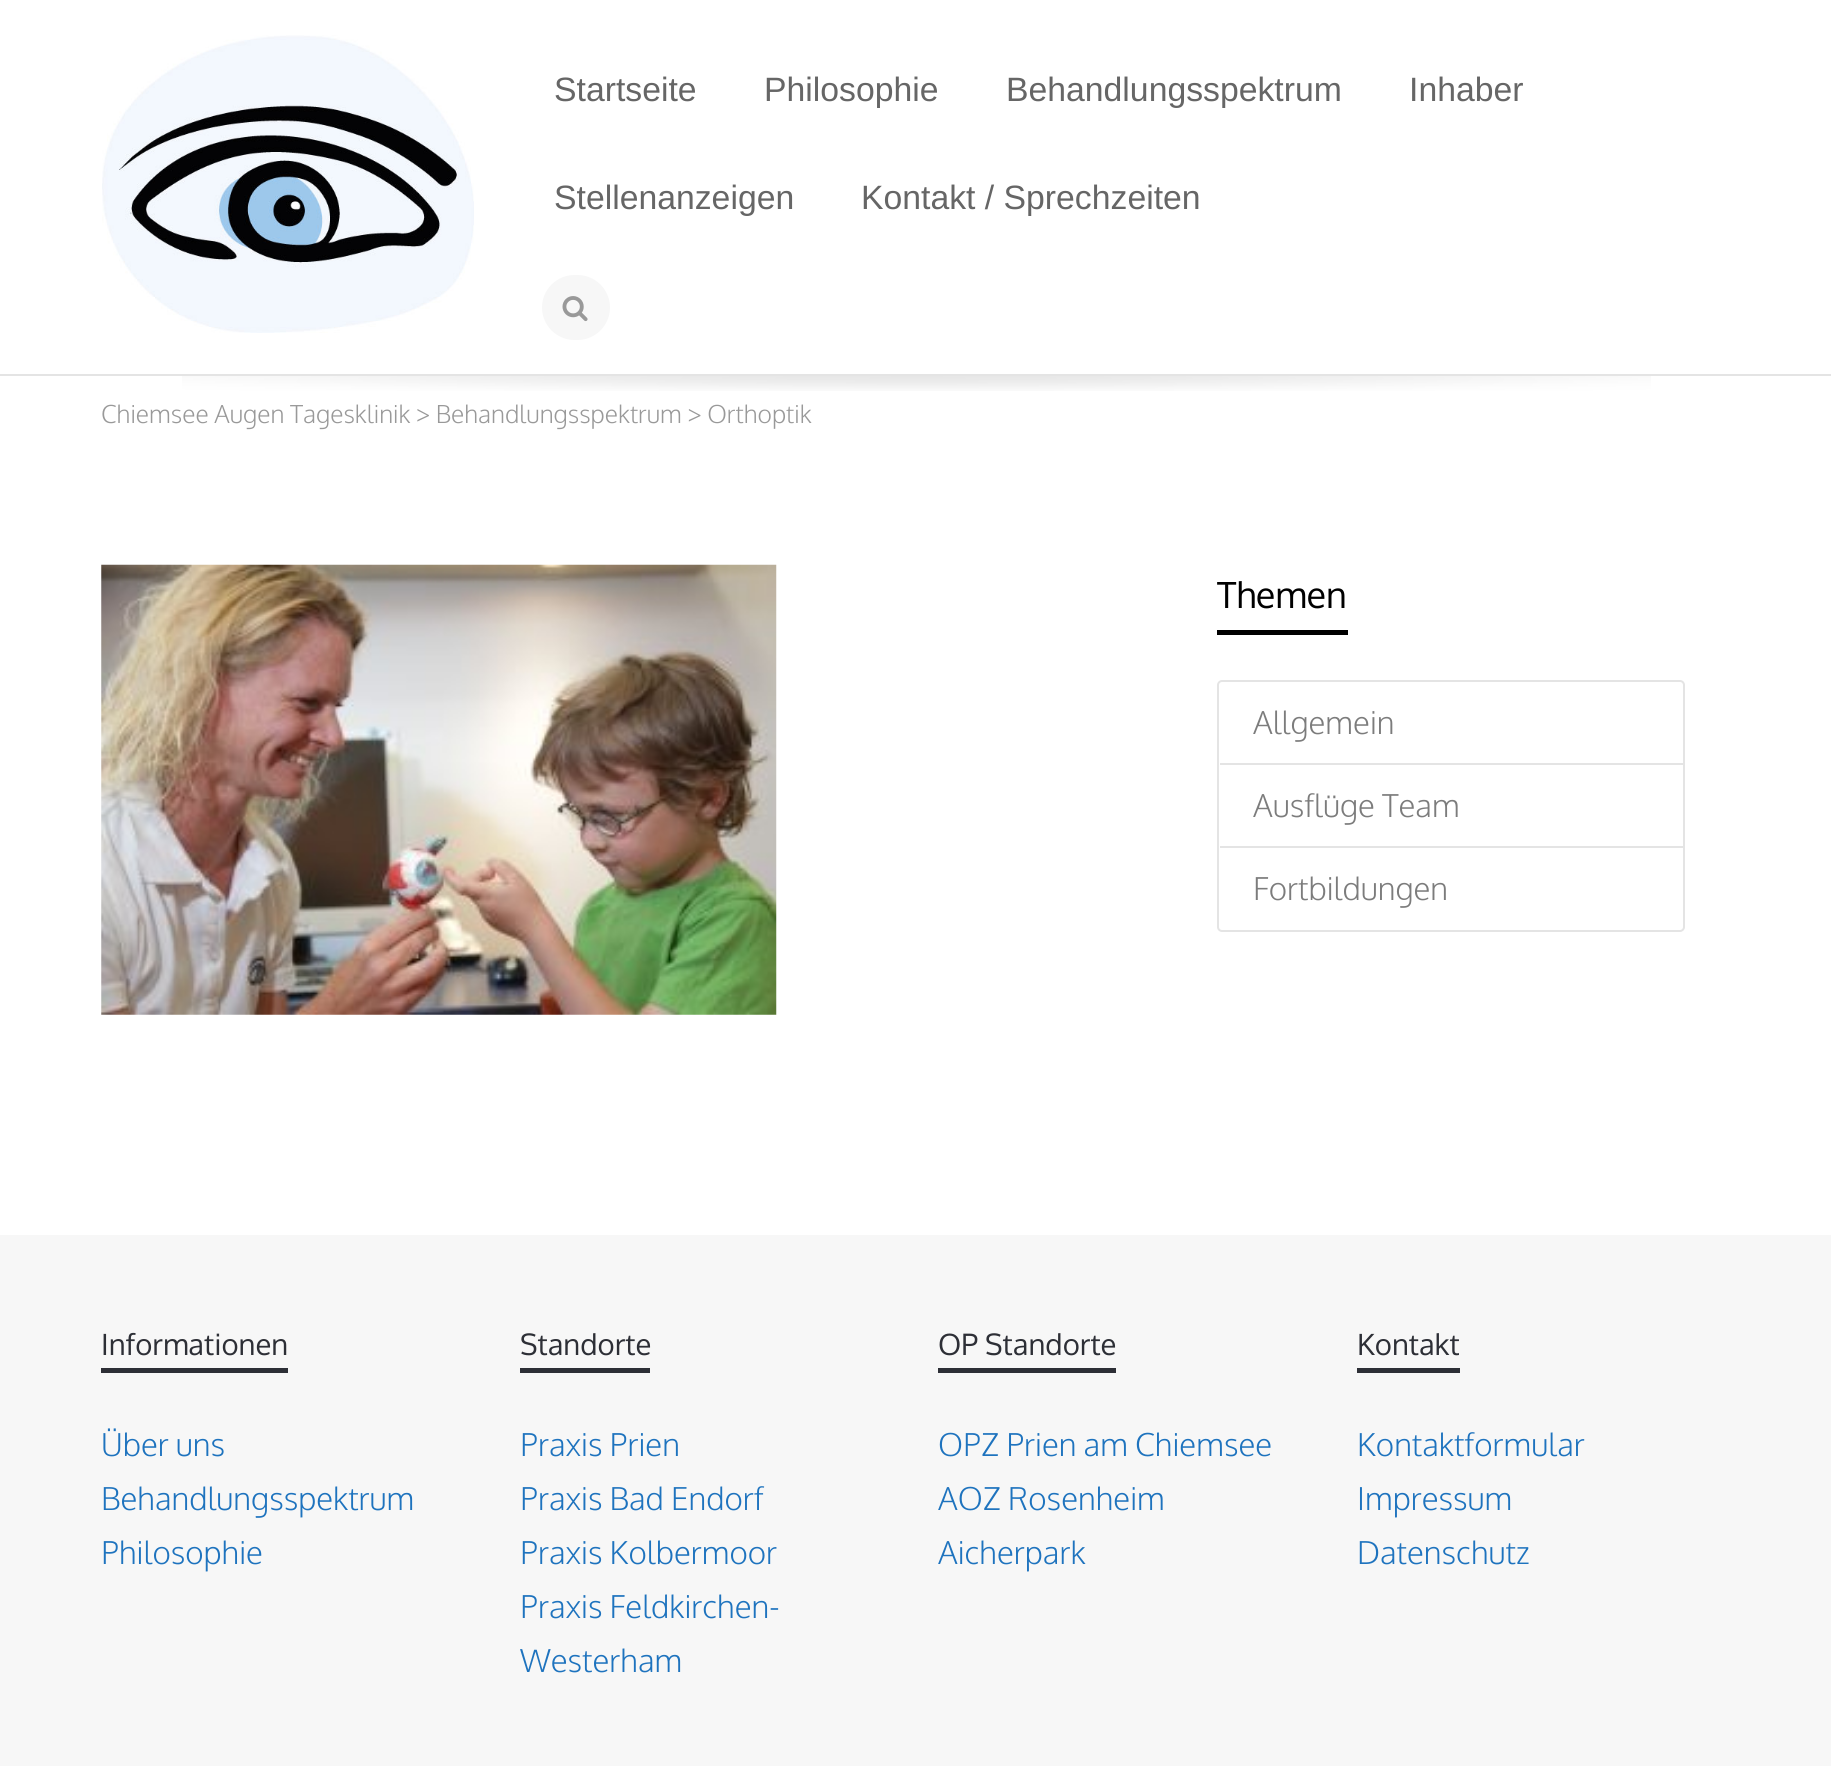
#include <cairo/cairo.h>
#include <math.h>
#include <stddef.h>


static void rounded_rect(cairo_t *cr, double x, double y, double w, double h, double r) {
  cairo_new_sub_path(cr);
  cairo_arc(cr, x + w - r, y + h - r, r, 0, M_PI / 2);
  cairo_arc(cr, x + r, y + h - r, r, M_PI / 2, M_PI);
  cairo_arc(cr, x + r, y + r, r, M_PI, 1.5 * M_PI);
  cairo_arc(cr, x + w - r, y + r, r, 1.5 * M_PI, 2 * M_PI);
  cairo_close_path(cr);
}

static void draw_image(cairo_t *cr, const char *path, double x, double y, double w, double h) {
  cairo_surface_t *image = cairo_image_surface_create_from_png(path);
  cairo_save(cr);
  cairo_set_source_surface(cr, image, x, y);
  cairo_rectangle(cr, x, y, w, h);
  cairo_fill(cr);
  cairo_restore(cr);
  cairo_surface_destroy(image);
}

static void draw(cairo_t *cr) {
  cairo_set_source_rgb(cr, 1, 1, 1);
  cairo_paint(cr);
  cairo_set_source_rgb(cr, 228 / 255.0, 228 / 255.0, 228 / 255.0);
  cairo_rectangle(cr, 0, 374, 1831, 2);
  cairo_fill(cr);
  draw_image(cr, "images/1.png", 102, 35, 372, 298);
  cairo_set_source_rgb(cr, 247 / 255.0, 247 / 255.0, 247 / 255.0);
  rounded_rect(cr, 542, 275, 68, 65, 32.5);
  cairo_fill(cr);
  draw_image(cr, "images/2.png", 562, 296, 26, 26);
  draw_image(cr, "images/3.png", 182, 376, 1469, 15);
  draw_image(cr, "images/4.png", 101, 564, 676, 451);
  cairo_set_source_rgb(cr, 0, 0, 0);
  cairo_rectangle(cr, 1217, 630, 131, 5);
  cairo_fill(cr);
  rounded_rect(cr, 1218, 681, 466, 250, 4);
  cairo_set_source_rgb(cr, 228 / 255.0, 228 / 255.0, 228 / 255.0);
  cairo_stroke(cr);
  cairo_rectangle(cr, 1220, 763, 463, 2);
  cairo_fill(cr);
  cairo_rectangle(cr, 1220, 846, 463, 2);
  cairo_fill(cr);
  cairo_set_source_rgb(cr, 247 / 255.0, 247 / 255.0, 247 / 255.0);
  cairo_rectangle(cr, 0, 1235, 1831, 531);
  cairo_fill(cr);
  cairo_set_source_rgb(cr, 45 / 255.0, 47 / 255.0, 54 / 255.0);
  cairo_rectangle(cr, 101, 1368, 187, 5);
  cairo_fill(cr);
  cairo_rectangle(cr, 520, 1368, 130, 5);
  cairo_fill(cr);
  cairo_rectangle(cr, 938, 1368, 178, 5);
  cairo_fill(cr);
  cairo_rectangle(cr, 1357, 1368, 103, 5);
  cairo_fill(cr);
  cairo_select_font_face(cr, "Liberation Sans", CAIRO_FONT_SLANT_NORMAL, CAIRO_FONT_WEIGHT_NORMAL);
  cairo_set_font_size(cr, 33.75);
  cairo_set_source_rgb(cr, 102 / 255.0, 102 / 255.0, 102 / 255.0);
  cairo_move_to(cr, 554, 101);
  cairo_show_text(cr, "Startseite");
  cairo_move_to(cr, 764, 101);
  cairo_show_text(cr, "Philosophie");
  cairo_move_to(cr, 1006, 101);
  cairo_show_text(cr, "Behandlungsspektrum");
  cairo_move_to(cr, 1409, 101);
  cairo_show_text(cr, "Inhaber");
  cairo_move_to(cr, 554, 209);
  cairo_show_text(cr, "Stellenanzeigen");
  cairo_move_to(cr, 861, 209);
  cairo_show_text(cr, "Kontakt / Sprechzeiten");
  cairo_select_font_face(cr, "Oxygen Light", CAIRO_FONT_SLANT_NORMAL, CAIRO_FONT_WEIGHT_NORMAL);
  cairo_set_font_size(cr, 24.75);
  cairo_set_source_rgb(cr, 153 / 255.0, 153 / 255.0, 153 / 255.0);
  cairo_move_to(cr, 101, 423);
  cairo_show_text(cr, "Chiemsee Augen Tagesklinik > Behandlungsspektrum > Orthoptik");
  cairo_select_font_face(cr, "Oxygen", CAIRO_FONT_SLANT_NORMAL, CAIRO_FONT_WEIGHT_NORMAL);
  cairo_set_font_size(cr, 36);
  cairo_set_source_rgb(cr, 0, 0, 0);
  cairo_move_to(cr, 1217, 608);
  cairo_show_text(cr, "Themen");
  cairo_select_font_face(cr, "Oxygen Light", CAIRO_FONT_SLANT_NORMAL, CAIRO_FONT_WEIGHT_NORMAL);
  cairo_set_font_size(cr, 31.5);
  cairo_set_source_rgb(cr, 124 / 255.0, 124 / 255.0, 124 / 255.0);
  cairo_move_to(cr, 1253, 734);
  cairo_show_text(cr, "Allgemein");
  cairo_move_to(cr, 1253, 817);
  cairo_show_text(cr, "Ausflüge Team");
  cairo_move_to(cr, 1253, 900);
  cairo_show_text(cr, "Fortbildungen");
  cairo_select_font_face(cr, "Oxygen", CAIRO_FONT_SLANT_NORMAL, CAIRO_FONT_WEIGHT_NORMAL);
  cairo_set_font_size(cr, 29.25);
  cairo_set_source_rgb(cr, 45 / 255.0, 47 / 255.0, 54 / 255.0);
  cairo_move_to(cr, 101, 1355);
  cairo_show_text(cr, "Informationen");
  cairo_select_font_face(cr, "Oxygen Light", CAIRO_FONT_SLANT_NORMAL, CAIRO_FONT_WEIGHT_NORMAL);
  cairo_set_font_size(cr, 31.5);
  cairo_set_source_rgb(cr, 30 / 255.0, 115 / 255.0, 190 / 255.0);
  cairo_move_to(cr, 101, 1456);
  cairo_show_text(cr, "Über uns");
  cairo_move_to(cr, 101, 1510);
  cairo_show_text(cr, "Behandlungsspektrum");
  cairo_move_to(cr, 101, 1564);
  cairo_show_text(cr, "Philosophie");
  cairo_select_font_face(cr, "Oxygen", CAIRO_FONT_SLANT_NORMAL, CAIRO_FONT_WEIGHT_NORMAL);
  cairo_set_font_size(cr, 29.25);
  cairo_set_source_rgb(cr, 45 / 255.0, 47 / 255.0, 54 / 255.0);
  cairo_move_to(cr, 520, 1355);
  cairo_show_text(cr, "Standorte");
  cairo_select_font_face(cr, "Oxygen Light", CAIRO_FONT_SLANT_NORMAL, CAIRO_FONT_WEIGHT_NORMAL);
  cairo_set_font_size(cr, 31.5);
  cairo_set_source_rgb(cr, 30 / 255.0, 115 / 255.0, 190 / 255.0);
  cairo_move_to(cr, 520, 1456);
  cairo_show_text(cr, "Praxis Prien");
  cairo_move_to(cr, 520, 1510);
  cairo_show_text(cr, "Praxis Bad Endorf");
  cairo_move_to(cr, 520, 1564);
  cairo_show_text(cr, "Praxis Kolbermoor");
  cairo_move_to(cr, 520, 1618);
  cairo_show_text(cr, "Praxis Feldkirchen-");
  cairo_move_to(cr, 520, 1672);
  cairo_show_text(cr, "Westerham");
  cairo_select_font_face(cr, "Oxygen", CAIRO_FONT_SLANT_NORMAL, CAIRO_FONT_WEIGHT_NORMAL);
  cairo_set_font_size(cr, 29.25);
  cairo_set_source_rgb(cr, 45 / 255.0, 47 / 255.0, 54 / 255.0);
  cairo_move_to(cr, 938, 1355);
  cairo_show_text(cr, "OP Standorte");
  cairo_select_font_face(cr, "Oxygen Light", CAIRO_FONT_SLANT_NORMAL, CAIRO_FONT_WEIGHT_NORMAL);
  cairo_set_font_size(cr, 31.5);
  cairo_set_source_rgb(cr, 30 / 255.0, 115 / 255.0, 190 / 255.0);
  cairo_move_to(cr, 938, 1456);
  cairo_show_text(cr, "OPZ Prien am Chiemsee");
  cairo_move_to(cr, 938, 1510);
  cairo_show_text(cr, "AOZ Rosenheim");
  cairo_move_to(cr, 938, 1564);
  cairo_show_text(cr, "Aicherpark");
  cairo_select_font_face(cr, "Oxygen", CAIRO_FONT_SLANT_NORMAL, CAIRO_FONT_WEIGHT_NORMAL);
  cairo_set_font_size(cr, 29.25);
  cairo_set_source_rgb(cr, 45 / 255.0, 47 / 255.0, 54 / 255.0);
  cairo_move_to(cr, 1357, 1355);
  cairo_show_text(cr, "Kontakt");
  cairo_select_font_face(cr, "Oxygen Light", CAIRO_FONT_SLANT_NORMAL, CAIRO_FONT_WEIGHT_NORMAL);
  cairo_set_font_size(cr, 31.5);
  cairo_set_source_rgb(cr, 30 / 255.0, 115 / 255.0, 190 / 255.0);
  cairo_move_to(cr, 1357, 1456);
  cairo_show_text(cr, "Kontaktformular");
  cairo_move_to(cr, 1357, 1510);
  cairo_show_text(cr, "Impressum");
  cairo_move_to(cr, 1357, 1564);
  cairo_show_text(cr, "Datenschutz");
}

int main(void) {
  cairo_surface_t *surface = cairo_image_surface_create(CAIRO_FORMAT_RGB24, 1831, 1766);
  cairo_t *cr = cairo_create(surface);
  cairo_font_options_t *options = cairo_font_options_create();
  cairo_font_options_set_hint_metrics(options, CAIRO_HINT_METRICS_OFF);
  cairo_font_options_set_hint_style(options, CAIRO_HINT_STYLE_NONE);
  cairo_set_font_options(cr, options);
  cairo_set_miter_limit(cr, 4);
  draw(cr);
  cairo_surface_write_to_png(surface, "out.png");
  cairo_font_options_destroy(options);
  cairo_destroy(cr);
  cairo_surface_destroy(surface);
  return 0;
}
